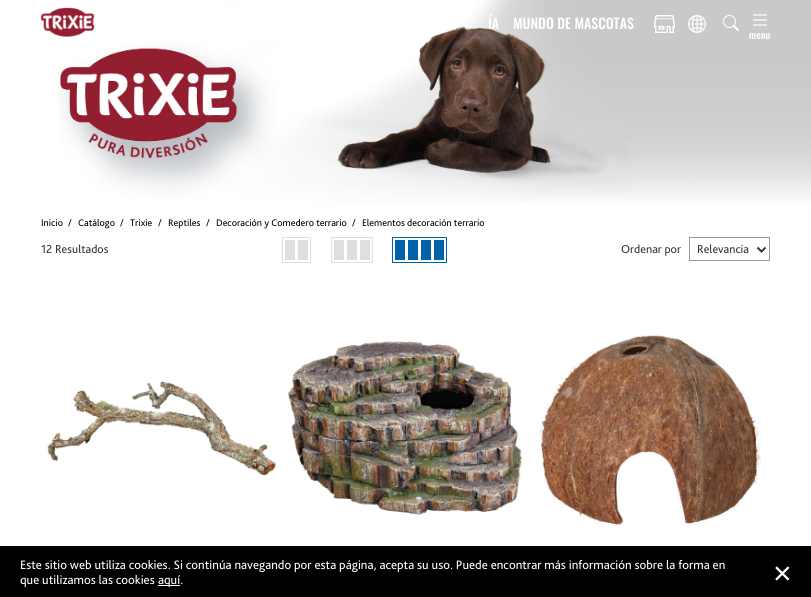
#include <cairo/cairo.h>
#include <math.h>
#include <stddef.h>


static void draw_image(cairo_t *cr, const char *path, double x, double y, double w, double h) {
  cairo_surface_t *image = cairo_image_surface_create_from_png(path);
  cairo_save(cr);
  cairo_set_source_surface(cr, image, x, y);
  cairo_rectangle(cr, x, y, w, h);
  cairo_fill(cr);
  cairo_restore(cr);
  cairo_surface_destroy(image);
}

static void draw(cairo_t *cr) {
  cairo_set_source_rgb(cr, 1, 1, 1);
  cairo_paint(cr);
  draw_image(cr, "images/1.png", 58, 0, 753, 204);
  draw_image(cr, "images/2.png", 40, 7, 55, 30);
  draw_image(cr, "images/3.png", 654, 15, 21, 18);
  draw_image(cr, "images/4.png", 688, 15, 18, 18);
  draw_image(cr, "images/5.png", 723, 15, 16, 16);
  draw_image(cr, "images/6.png", 753, 14, 14, 12);
  draw_image(cr, "images/7.png", 282, 237, 29, 26);
  draw_image(cr, "images/8.png", 331, 237, 42, 26);
  draw_image(cr, "images/9.png", 392, 237, 55, 26);
  cairo_rectangle(cr, 689.5, 237.5, 80, 23);
  cairo_set_source_rgb(cr, 151 / 255.0, 151 / 255.0, 151 / 255.0);
  cairo_set_line_width(cr, 1);
  cairo_stroke(cr);
  cairo_new_path(cr);
  cairo_move_to(cr, 757.5, 247.5);
  cairo_line_to(cr, 761.5, 251.5);
  cairo_line_to(cr, 765.5, 247.5);
  cairo_set_source_rgb(cr, 54 / 255.0, 54 / 255.0, 54 / 255.0);
  cairo_set_line_width(cr, 2);
  cairo_stroke(cr);
  draw_image(cr, "images/10.png", 47, 381, 230, 95);
  draw_image(cr, "images/11.png", 287, 341, 236, 174);
  draw_image(cr, "images/12.png", 539, 334, 222, 194);
  cairo_set_source_rgb(cr, 0, 0, 0);
  cairo_rectangle(cr, 0, 546, 811, 51);
  cairo_fill(cr);
  cairo_set_source_rgb(cr, 1, 1, 1);
  cairo_rectangle(cr, 158, 585, 22, 1);
  cairo_fill(cr);
  cairo_select_font_face(cr, "Oswald Medium", CAIRO_FONT_SLANT_NORMAL, CAIRO_FONT_WEIGHT_NORMAL);
  cairo_set_font_size(cr, 14);
  cairo_move_to(cr, 488, 29);
  cairo_show_text(cr, "ÍA");
  cairo_move_to(cr, 513, 29);
  cairo_show_text(cr, "MUNDO DE MASCOTAS");
  cairo_set_font_size(cr, 10);
  cairo_move_to(cr, 749, 39);
  cairo_show_text(cr, "menu");
  cairo_select_font_face(cr, "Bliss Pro", CAIRO_FONT_SLANT_NORMAL, CAIRO_FONT_WEIGHT_NORMAL);
  cairo_set_source_rgb(cr, 0, 0, 0);
  cairo_move_to(cr, 41, 226);
  cairo_show_text(cr, "Inicio");
  cairo_move_to(cr, 68, 226);
  cairo_show_text(cr, "/");
  cairo_move_to(cr, 78, 226);
  cairo_show_text(cr, "Catálogo");
  cairo_move_to(cr, 120, 226);
  cairo_show_text(cr, "/");
  cairo_move_to(cr, 130, 226);
  cairo_show_text(cr, "Trixie");
  cairo_move_to(cr, 158, 226);
  cairo_show_text(cr, "/");
  cairo_move_to(cr, 168, 226);
  cairo_show_text(cr, "Reptiles");
  cairo_move_to(cr, 206, 226);
  cairo_show_text(cr, "/");
  cairo_move_to(cr, 216, 226);
  cairo_show_text(cr, "Decoración y Comedero terrario");
  cairo_move_to(cr, 352, 226);
  cairo_show_text(cr, "/");
  cairo_move_to(cr, 362, 226);
  cairo_show_text(cr, "Elementos decoración terrario");
  cairo_set_font_size(cr, 12);
  cairo_set_source_rgb(cr, 54 / 255.0, 54 / 255.0, 54 / 255.0);
  cairo_move_to(cr, 41, 253);
  cairo_show_text(cr, "12 Resultados");
  cairo_move_to(cr, 621, 253);
  cairo_show_text(cr, "Ordenar por");
  cairo_move_to(cr, 697, 253);
  cairo_show_text(cr, "Relevancia");
  cairo_set_font_size(cr, 12.83);
  cairo_set_source_rgb(cr, 1, 1, 1);
  cairo_move_to(cr, 20, 569);
  cairo_show_text(cr, "Este sitio web utiliza cookies. Si continúa navegando por esta página, acepta su uso. Puede encontrar más información sobre la forma en");
  cairo_set_font_size(cr, 30);
  cairo_move_to(cr, 774, 581);
  cairo_show_text(cr, "×");
  cairo_set_font_size(cr, 12.83);
  cairo_move_to(cr, 20, 584);
  cairo_show_text(cr, "que utilizamos las cookies");
  cairo_move_to(cr, 158, 584);
  cairo_show_text(cr, "aquí.");
}

int main(void) {
  cairo_surface_t *surface = cairo_image_surface_create(CAIRO_FORMAT_RGB24, 811, 597);
  cairo_t *cr = cairo_create(surface);
  cairo_font_options_t *options = cairo_font_options_create();
  cairo_font_options_set_hint_metrics(options, CAIRO_HINT_METRICS_OFF);
  cairo_font_options_set_hint_style(options, CAIRO_HINT_STYLE_NONE);
  cairo_set_font_options(cr, options);
  cairo_set_miter_limit(cr, 4);
  draw(cr);
  cairo_surface_write_to_png(surface, "out.png");
  cairo_font_options_destroy(options);
  cairo_destroy(cr);
  cairo_surface_destroy(surface);
  return 0;
}
